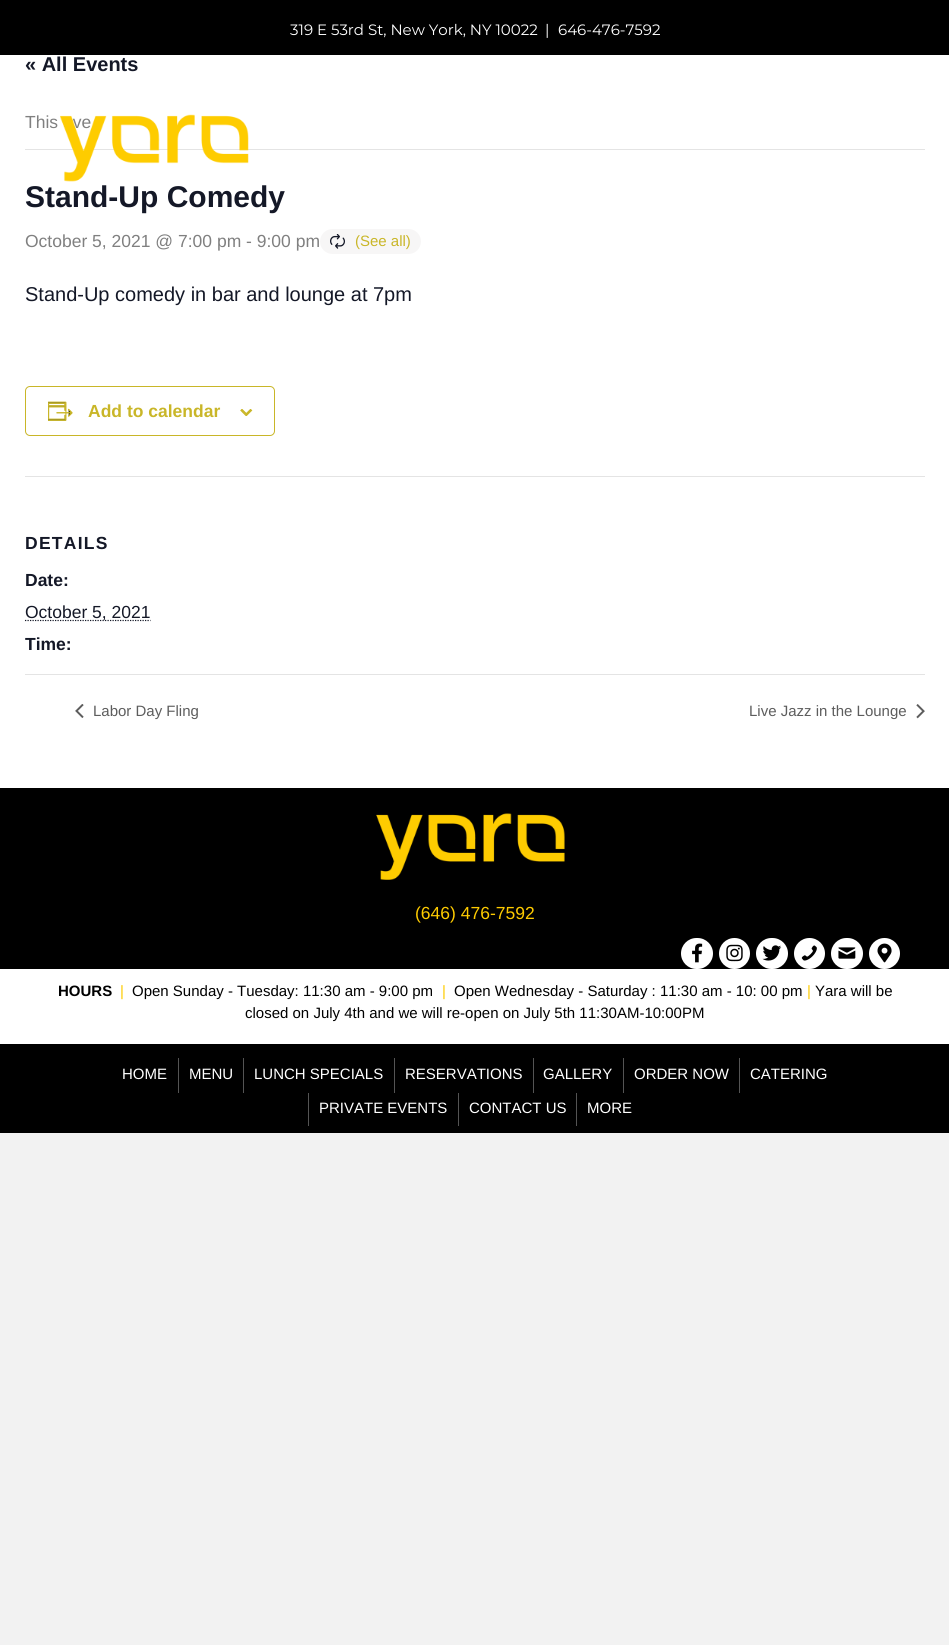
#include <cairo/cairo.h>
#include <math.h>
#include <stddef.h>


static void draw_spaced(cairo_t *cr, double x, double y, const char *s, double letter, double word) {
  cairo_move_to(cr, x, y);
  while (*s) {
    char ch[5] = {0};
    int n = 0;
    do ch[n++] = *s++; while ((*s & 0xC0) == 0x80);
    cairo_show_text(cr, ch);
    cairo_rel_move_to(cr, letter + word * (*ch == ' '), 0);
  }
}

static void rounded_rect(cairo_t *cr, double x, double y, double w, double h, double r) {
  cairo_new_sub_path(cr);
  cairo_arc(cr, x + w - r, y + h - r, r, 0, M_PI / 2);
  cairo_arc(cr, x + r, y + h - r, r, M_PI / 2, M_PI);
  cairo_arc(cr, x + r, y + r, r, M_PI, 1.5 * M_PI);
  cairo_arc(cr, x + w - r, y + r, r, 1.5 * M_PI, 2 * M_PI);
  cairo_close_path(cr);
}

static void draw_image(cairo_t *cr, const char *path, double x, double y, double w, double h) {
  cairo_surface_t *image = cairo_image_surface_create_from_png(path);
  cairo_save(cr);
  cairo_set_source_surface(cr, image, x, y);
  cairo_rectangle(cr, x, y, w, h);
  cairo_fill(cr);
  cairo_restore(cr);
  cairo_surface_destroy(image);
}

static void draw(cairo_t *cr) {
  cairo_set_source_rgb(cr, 242 / 255.0, 242 / 255.0, 242 / 255.0);
  cairo_paint(cr);
  cairo_set_source_rgb(cr, 0, 0, 0);
  cairo_rectangle(cr, 0, 0, 949, 55);
  cairo_fill(cr);
  cairo_set_source_rgb(cr, 1, 1, 1);
  cairo_rectangle(cr, 0, 55, 949, 733);
  cairo_fill(cr);
  cairo_set_source_rgb(cr, 228 / 255.0, 228 / 255.0, 228 / 255.0);
  cairo_rectangle(cr, 25, 149, 900, 1);
  cairo_fill(cr);
  cairo_set_source_rgb(cr, 247 / 255.0, 246 / 255.0, 246 / 255.0);
  rounded_rect(cr, 320, 229, 101, 25, 12.5);
  cairo_fill(cr);
  draw_image(cr, "images/2.png", 330, 234, 15, 15);
  rounded_rect(cr, 25.5, 386.5, 249, 49, 4.5);
  cairo_set_source_rgb(cr, 201 / 255.0, 182 / 255.0, 40 / 255.0);
  cairo_set_line_width(cr, 1);
  cairo_stroke(cr);
  draw_image(cr, "images/3.png", 48, 401, 25, 20);
  draw_image(cr, "images/4.png", 240, 409, 13, 7);
  cairo_set_source_rgb(cr, 228 / 255.0, 228 / 255.0, 228 / 255.0);
  cairo_rectangle(cr, 25, 476, 900, 1);
  cairo_fill(cr);
  cairo_new_path(cr);
  cairo_move_to(cr, 25, 620.5);
  cairo_line_to(cr, 150.5, 620.5);
  cairo_set_source_rgb(cr, 20 / 255.0, 24 / 255.0, 39 / 255.0);
  cairo_set_line_width(cr, 1.2);
  cairo_set_dash(cr, (double[]){1.25, 1.25}, 2, 0);
  cairo_stroke(cr);
  cairo_set_source_rgb(cr, 228 / 255.0, 228 / 255.0, 228 / 255.0);
  cairo_rectangle(cr, 25, 674, 900, 1);
  cairo_fill(cr);
  draw_image(cr, "images/5.png", 75, 704, 9, 14);
  draw_image(cr, "images/6.png", 916, 704, 9, 15);
  cairo_set_source_rgb(cr, 0, 0, 0);
  cairo_rectangle(cr, 0, 788, 949, 181);
  cairo_fill(cr);
  draw_image(cr, "images/7.png", 376, 813, 189, 67);
  cairo_set_source_rgb(cr, 1, 1, 1);
  rounded_rect(cr, 681, 938, 32, 31, 15.5);
  cairo_fill(cr);
  draw_image(cr, "images/8.png", 692, 943, 11, 20);
  cairo_arc(cr, 734.5, 953.5, 15.5, 0, 2 * M_PI);
  cairo_fill(cr);
  draw_image(cr, "images/9.png", 726, 944, 17, 18);
  rounded_rect(cr, 756, 938, 32, 31, 15.5);
  cairo_fill(cr);
  draw_image(cr, "images/10.png", 762, 945, 20, 16);
  cairo_arc(cr, 809.5, 953.5, 15.5, 0, 2 * M_PI);
  cairo_fill(cr);
  draw_image(cr, "images/11.png", 801, 945, 16, 16);
  rounded_rect(cr, 831, 938, 32, 31, 15.5);
  cairo_fill(cr);
  draw_image(cr, "images/12.png", 838, 947, 18, 12);
  cairo_arc(cr, 884.5, 953.5, 15.5, 0, 2 * M_PI);
  cairo_fill(cr);
  draw_image(cr, "images/13.png", 877, 943, 15, 20);
  cairo_rectangle(cr, 0, 969, 949, 75);
  cairo_fill(cr);
  cairo_set_source_rgb(cr, 0, 0, 0);
  cairo_rectangle(cr, 0, 1044, 949, 89);
  cairo_fill(cr);
  cairo_set_source_rgb(cr, 84 / 255.0, 84 / 255.0, 84 / 255.0);
  cairo_rectangle(cr, 178, 1058, 1, 35);
  cairo_fill(cr);
  cairo_rectangle(cr, 243, 1058, 1, 35);
  cairo_fill(cr);
  cairo_rectangle(cr, 394, 1058, 1, 35);
  cairo_fill(cr);
  cairo_rectangle(cr, 533, 1058, 1, 35);
  cairo_fill(cr);
  cairo_rectangle(cr, 623, 1058, 1, 35);
  cairo_fill(cr);
  cairo_rectangle(cr, 739, 1058, 1, 35);
  cairo_fill(cr);
  cairo_rectangle(cr, 308, 1093, 1, 33);
  cairo_fill(cr);
  cairo_rectangle(cr, 458, 1093, 1, 33);
  cairo_fill(cr);
  cairo_rectangle(cr, 576, 1093, 1, 33);
  cairo_fill(cr);
  cairo_select_font_face(cr, "Montserrat", CAIRO_FONT_SLANT_NORMAL, CAIRO_FONT_WEIGHT_NORMAL);
  cairo_set_font_size(cr, 15);
  cairo_set_source_rgb(cr, 1, 1, 1);
  cairo_move_to(cr, 290, 35);
  cairo_show_text(cr, "319 E 53rd St, New York, NY 10022");
  cairo_move_to(cr, 545, 35);
  cairo_show_text(cr, "|");
  cairo_move_to(cr, 558, 35);
  cairo_show_text(cr, "646-476-7592");
  cairo_select_font_face(cr, "Liberation Sans", CAIRO_FONT_SLANT_NORMAL, CAIRO_FONT_WEIGHT_BOLD);
  cairo_set_font_size(cr, 20);
  cairo_set_source_rgb(cr, 20 / 255.0, 24 / 255.0, 39 / 255.0);
  cairo_move_to(cr, 25, 71);
  cairo_show_text(cr, "« All Events");
  cairo_select_font_face(cr, "Liberation Sans", CAIRO_FONT_SLANT_NORMAL, CAIRO_FONT_WEIGHT_NORMAL);
  cairo_set_font_size(cr, 17.5);
  cairo_set_source_rgb(cr, 128 / 255.0, 128 / 255.0, 128 / 255.0);
  cairo_move_to(cr, 25, 128);
  cairo_show_text(cr, "This eve");
  draw_image(cr, "images/1.png", 60, 114, 189, 68);
  cairo_select_font_face(cr, "Liberation Sans", CAIRO_FONT_SLANT_NORMAL, CAIRO_FONT_WEIGHT_BOLD);
  cairo_set_font_size(cr, 30);
  cairo_set_source_rgb(cr, 20 / 255.0, 24 / 255.0, 39 / 255.0);
  cairo_move_to(cr, 25, 207);
  cairo_show_text(cr, "Stand-Up Comedy");
  cairo_select_font_face(cr, "Liberation Sans", CAIRO_FONT_SLANT_NORMAL, CAIRO_FONT_WEIGHT_NORMAL);
  cairo_set_font_size(cr, 17.5);
  cairo_set_source_rgb(cr, 128 / 255.0, 128 / 255.0, 128 / 255.0);
  cairo_move_to(cr, 25, 247);
  cairo_show_text(cr, "October 5, 2021 @ 7:00 pm - 9:00 pm");
  cairo_set_font_size(cr, 15);
  cairo_set_source_rgb(cr, 201 / 255.0, 182 / 255.0, 40 / 255.0);
  cairo_move_to(cr, 355, 246);
  cairo_show_text(cr, "(See all)");
  cairo_set_font_size(cr, 20);
  cairo_set_source_rgb(cr, 20 / 255.0, 24 / 255.0, 39 / 255.0);
  cairo_move_to(cr, 25, 301);
  cairo_show_text(cr, "Stand-Up comedy in bar and lounge at 7pm");
  cairo_select_font_face(cr, "Liberation Sans", CAIRO_FONT_SLANT_NORMAL, CAIRO_FONT_WEIGHT_BOLD);
  cairo_set_font_size(cr, 17.5);
  cairo_set_source_rgb(cr, 201 / 255.0, 182 / 255.0, 40 / 255.0);
  cairo_move_to(cr, 88, 417);
  cairo_show_text(cr, "Add to calendar");
  cairo_set_source_rgb(cr, 20 / 255.0, 24 / 255.0, 39 / 255.0);
  draw_spaced(cr, 25, 549, "DETAILS", 1.25, 0);
  cairo_move_to(cr, 25, 586);
  cairo_show_text(cr, "Date:");
  cairo_select_font_face(cr, "Liberation Sans", CAIRO_FONT_SLANT_NORMAL, CAIRO_FONT_WEIGHT_NORMAL);
  cairo_move_to(cr, 25, 618);
  cairo_show_text(cr, "October 5, 2021");
  cairo_select_font_face(cr, "Liberation Sans", CAIRO_FONT_SLANT_NORMAL, CAIRO_FONT_WEIGHT_BOLD);
  cairo_move_to(cr, 25, 650);
  cairo_show_text(cr, "Time:");
  cairo_select_font_face(cr, "Liberation Sans", CAIRO_FONT_SLANT_NORMAL, CAIRO_FONT_WEIGHT_NORMAL);
  cairo_set_font_size(cr, 15);
  cairo_set_source_rgb(cr, 93 / 255.0, 93 / 255.0, 93 / 255.0);
  cairo_move_to(cr, 93, 716);
  cairo_show_text(cr, "Labor Day Fling");
  cairo_move_to(cr, 749, 716);
  cairo_show_text(cr, "Live Jazz in the Lounge");
  cairo_set_font_size(cr, 17.5);
  cairo_set_source_rgb(cr, 254 / 255.0, 203 / 255.0, 0);
  cairo_move_to(cr, 415, 919);
  cairo_show_text(cr, "(646) 476-7592");
  cairo_select_font_face(cr, "Liberation Sans", CAIRO_FONT_SLANT_NORMAL, CAIRO_FONT_WEIGHT_BOLD);
  cairo_set_font_size(cr, 15);
  cairo_set_source_rgb(cr, 0, 0, 0);
  cairo_move_to(cr, 58, 996);
  cairo_show_text(cr, "HOURS");
  cairo_select_font_face(cr, "Liberation Sans", CAIRO_FONT_SLANT_NORMAL, CAIRO_FONT_WEIGHT_NORMAL);
  cairo_set_source_rgb(cr, 254 / 255.0, 203 / 255.0, 0);
  cairo_move_to(cr, 120, 996);
  cairo_show_text(cr, "|");
  cairo_set_source_rgb(cr, 0, 0, 0);
  cairo_move_to(cr, 132, 996);
  cairo_show_text(cr, "Open Sunday - Tuesday: 11:30 am - 9:00 pm");
  cairo_set_source_rgb(cr, 254 / 255.0, 203 / 255.0, 0);
  cairo_move_to(cr, 442, 996);
  cairo_show_text(cr, "|");
  cairo_set_source_rgb(cr, 0, 0, 0);
  cairo_move_to(cr, 454, 996);
  cairo_show_text(cr, "Open Wednesday - Saturday : 11:30 am - 10: 00 pm");
  cairo_set_source_rgb(cr, 254 / 255.0, 203 / 255.0, 0);
  cairo_move_to(cr, 807, 996);
  cairo_show_text(cr, "|");
  cairo_set_source_rgb(cr, 0, 0, 0);
  cairo_move_to(cr, 815, 996);
  cairo_show_text(cr, "Yara will be");
  cairo_move_to(cr, 245, 1018);
  cairo_show_text(cr, "closed on July 4th and we will re-open on July 5th 11:30AM-10:00PM");
  cairo_set_source_rgb(cr, 1, 1, 1);
  cairo_move_to(cr, 122, 1079);
  cairo_show_text(cr, "HOME");
  cairo_move_to(cr, 189, 1079);
  cairo_show_text(cr, "MENU");
  cairo_move_to(cr, 254, 1079);
  cairo_show_text(cr, "LUNCH SPECIALS");
  cairo_move_to(cr, 405, 1079);
  cairo_show_text(cr, "RESERVATIONS");
  cairo_move_to(cr, 543, 1079);
  cairo_show_text(cr, "GALLERY");
  cairo_move_to(cr, 634, 1079);
  cairo_show_text(cr, "ORDER NOW");
  cairo_move_to(cr, 750, 1079);
  cairo_show_text(cr, "CATERING");
  cairo_move_to(cr, 319, 1113);
  cairo_show_text(cr, "PRIVATE EVENTS");
  cairo_move_to(cr, 469, 1113);
  cairo_show_text(cr, "CONTACT US");
  cairo_move_to(cr, 587, 1113);
  cairo_show_text(cr, "MORE");
}

int main(void) {
  cairo_surface_t *surface = cairo_image_surface_create(CAIRO_FORMAT_RGB24, 949, 1645);
  cairo_t *cr = cairo_create(surface);
  cairo_font_options_t *options = cairo_font_options_create();
  cairo_font_options_set_hint_metrics(options, CAIRO_HINT_METRICS_OFF);
  cairo_font_options_set_hint_style(options, CAIRO_HINT_STYLE_NONE);
  cairo_set_font_options(cr, options);
  cairo_set_miter_limit(cr, 4);
  draw(cr);
  cairo_surface_write_to_png(surface, "out.png");
  cairo_font_options_destroy(options);
  cairo_destroy(cr);
  cairo_surface_destroy(surface);
  return 0;
}
